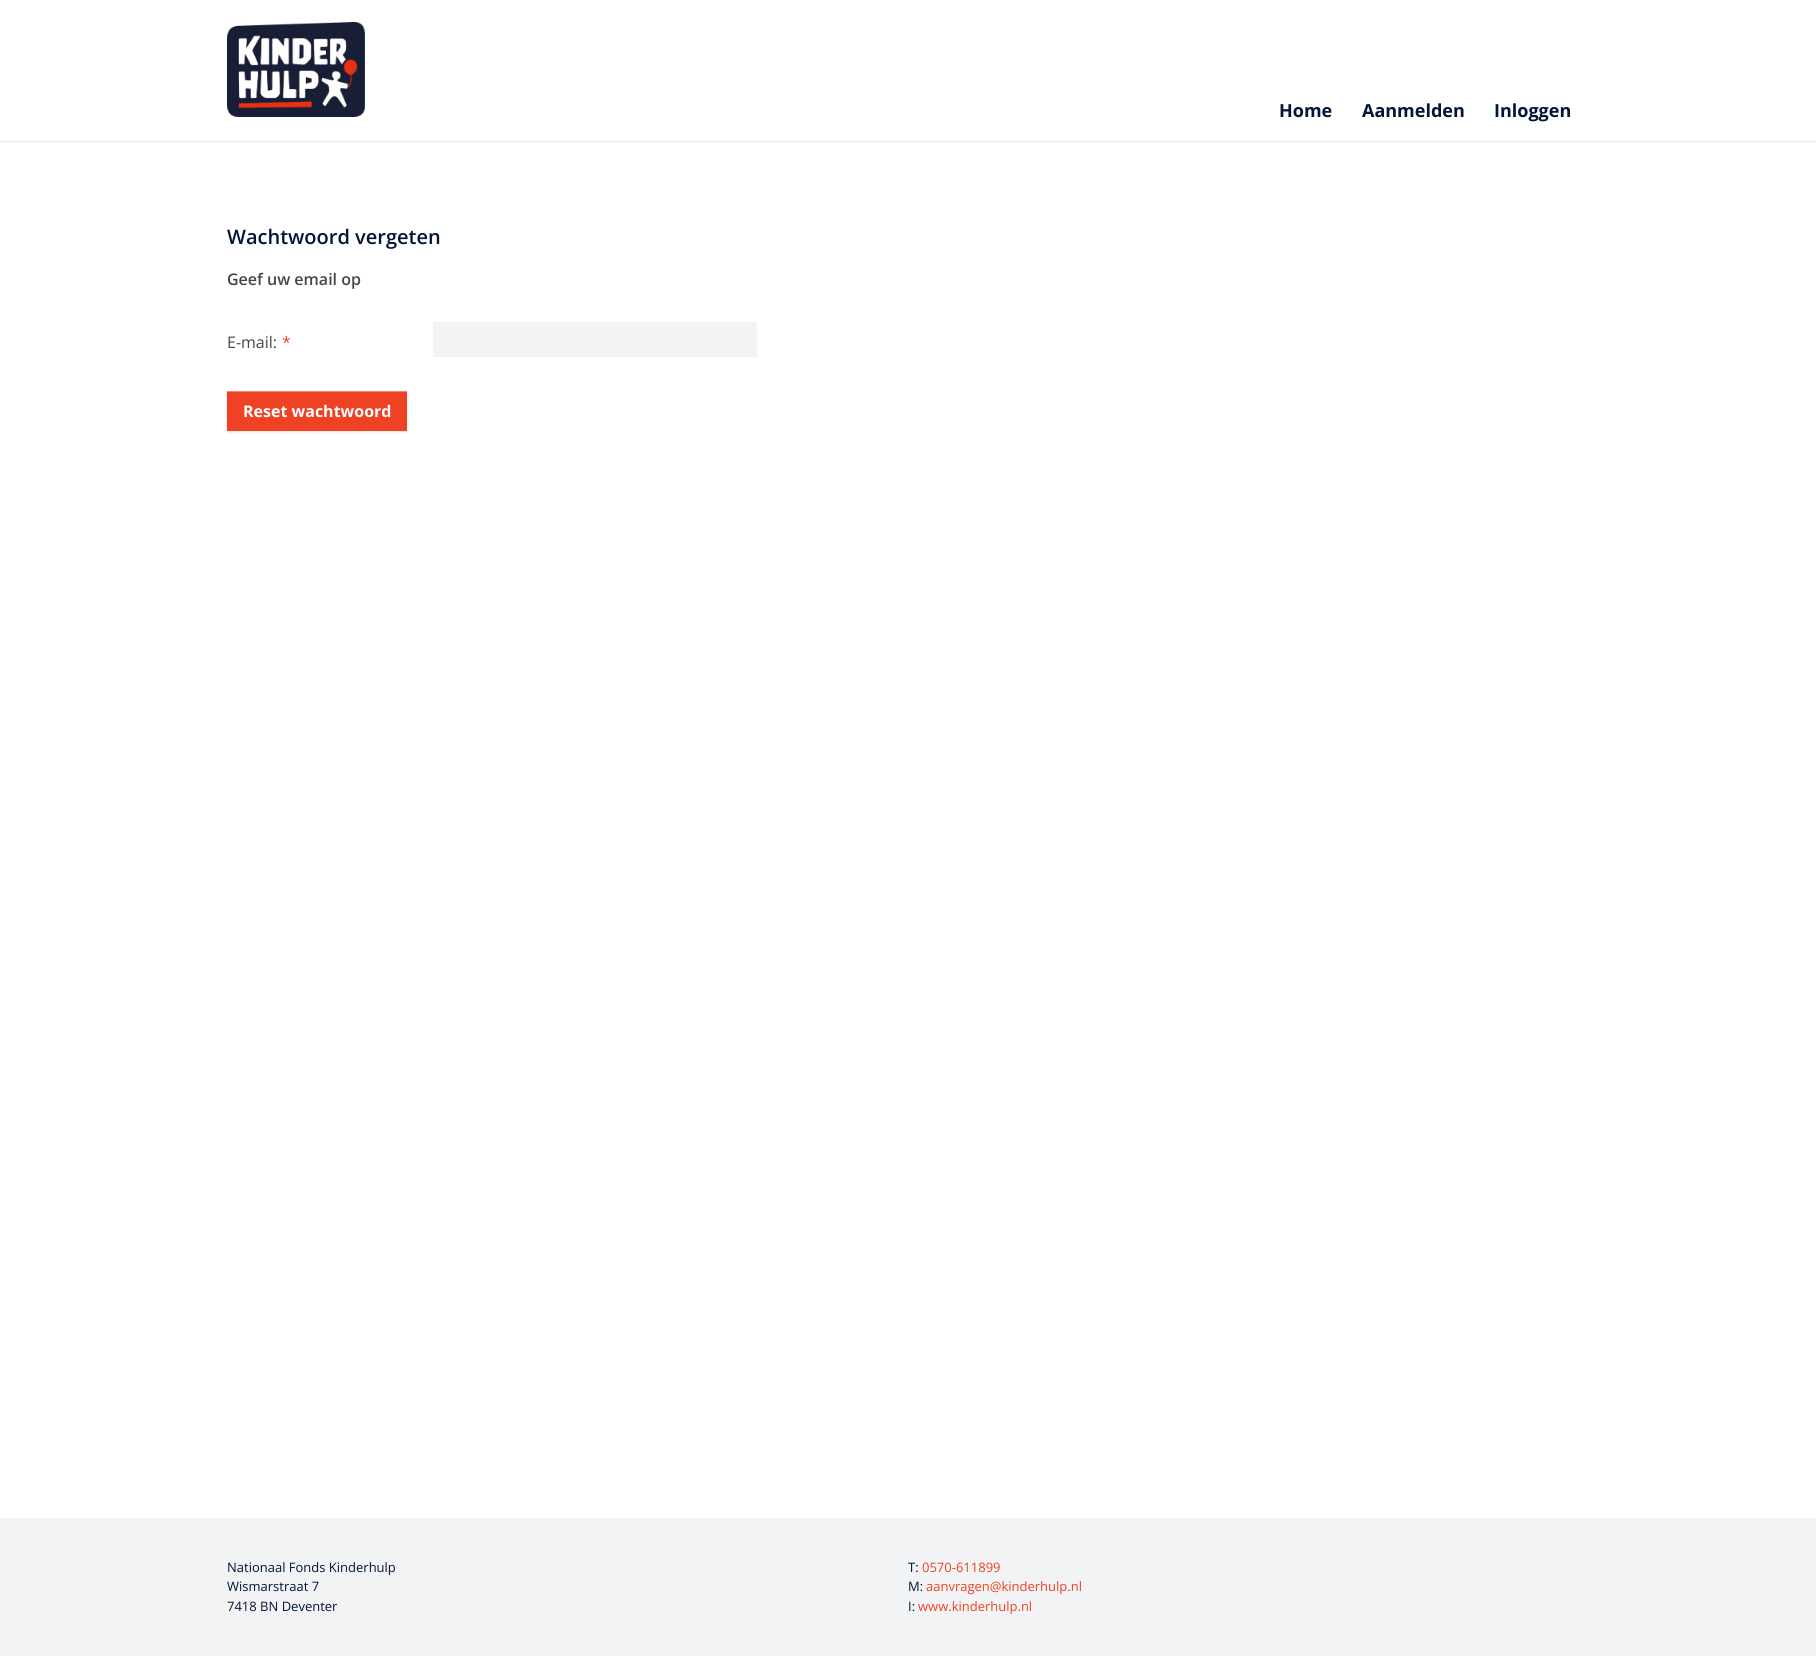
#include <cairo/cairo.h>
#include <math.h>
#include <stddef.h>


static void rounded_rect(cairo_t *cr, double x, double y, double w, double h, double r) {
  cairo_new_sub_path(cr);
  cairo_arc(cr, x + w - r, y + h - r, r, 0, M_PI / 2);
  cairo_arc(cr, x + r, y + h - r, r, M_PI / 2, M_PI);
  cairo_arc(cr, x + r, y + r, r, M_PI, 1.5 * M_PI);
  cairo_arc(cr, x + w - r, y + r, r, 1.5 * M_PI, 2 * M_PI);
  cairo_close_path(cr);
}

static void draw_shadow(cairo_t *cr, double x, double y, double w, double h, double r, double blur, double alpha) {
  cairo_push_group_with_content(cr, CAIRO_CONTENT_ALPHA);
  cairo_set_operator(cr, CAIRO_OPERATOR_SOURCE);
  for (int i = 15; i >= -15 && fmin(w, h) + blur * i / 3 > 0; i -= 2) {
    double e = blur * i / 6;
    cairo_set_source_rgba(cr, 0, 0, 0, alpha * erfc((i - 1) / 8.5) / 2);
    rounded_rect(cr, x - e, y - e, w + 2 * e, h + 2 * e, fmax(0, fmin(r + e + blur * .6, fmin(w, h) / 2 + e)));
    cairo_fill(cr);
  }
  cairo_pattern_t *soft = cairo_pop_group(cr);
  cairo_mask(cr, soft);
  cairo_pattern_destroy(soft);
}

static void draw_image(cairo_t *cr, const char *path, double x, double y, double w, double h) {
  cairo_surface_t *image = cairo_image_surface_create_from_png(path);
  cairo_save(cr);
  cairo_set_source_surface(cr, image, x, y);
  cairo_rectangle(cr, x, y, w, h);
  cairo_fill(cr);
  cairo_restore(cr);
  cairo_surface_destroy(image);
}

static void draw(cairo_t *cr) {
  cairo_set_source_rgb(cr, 1, 1, 1);
  cairo_paint(cr);
  draw_image(cr, "images/1.png", 227, 22, 138, 95);
  cairo_set_source_rgb(cr, 242 / 255.0, 243 / 255.0, 245 / 255.0);
  cairo_rectangle(cr, 0, 140, 1816, 3);
  cairo_fill(cr);
  cairo_rectangle(cr, 433, 322, 324, 35);
  cairo_fill(cr);
  cairo_set_source_rgb(cr, 0, 0, 0);
  draw_shadow(cr, 227, 392, 180, 40, 0, 1.5, 0.1);
  cairo_set_source_rgb(cr, 239 / 255.0, 65 / 255.0, 35 / 255.0);
  cairo_rectangle(cr, 227, 392, 180, 39);
  cairo_fill(cr);
  cairo_set_source_rgb(cr, 245 / 255.0, 132 / 255.0, 112 / 255.0);
  cairo_rectangle(cr, 227, 391, 180, 1);
  cairo_fill(cr);
  cairo_set_source_rgb(cr, 242 / 255.0, 243 / 255.0, 245 / 255.0);
  cairo_rectangle(cr, 0, 1518, 1816, 138);
  cairo_fill(cr);
  cairo_select_font_face(cr, "Open Sans", CAIRO_FONT_SLANT_NORMAL, CAIRO_FONT_WEIGHT_BOLD);
  cairo_set_font_size(cr, 18);
  cairo_set_source_rgb(cr, 0, 22 / 255.0, 54 / 255.0);
  cairo_move_to(cr, 1279, 117);
  cairo_show_text(cr, "Home");
  cairo_move_to(cr, 1362, 117);
  cairo_show_text(cr, "Aanmelden");
  cairo_move_to(cr, 1494, 117);
  cairo_show_text(cr, "Inloggen");
  cairo_select_font_face(cr, "Open Sans SemiBold", CAIRO_FONT_SLANT_NORMAL, CAIRO_FONT_WEIGHT_NORMAL);
  cairo_set_font_size(cr, 20);
  cairo_move_to(cr, 227, 244);
  cairo_show_text(cr, "Wachtwoord vergeten");
  cairo_set_font_size(cr, 16);
  cairo_set_source_rgb(cr, 70 / 255.0, 70 / 255.0, 70 / 255.0);
  cairo_move_to(cr, 227, 285);
  cairo_show_text(cr, "Geef uw email op");
  cairo_select_font_face(cr, "Open Sans", CAIRO_FONT_SLANT_NORMAL, CAIRO_FONT_WEIGHT_NORMAL);
  cairo_move_to(cr, 227, 348);
  cairo_show_text(cr, "E-mail:");
  cairo_set_source_rgb(cr, 239 / 255.0, 65 / 255.0, 35 / 255.0);
  cairo_move_to(cr, 282, 348);
  cairo_show_text(cr, "*");
  cairo_select_font_face(cr, "Open Sans", CAIRO_FONT_SLANT_NORMAL, CAIRO_FONT_WEIGHT_BOLD);
  cairo_set_source_rgb(cr, 1, 1, 1);
  cairo_move_to(cr, 243, 417);
  cairo_show_text(cr, "Reset wachtwoord");
  cairo_select_font_face(cr, "Open Sans", CAIRO_FONT_SLANT_NORMAL, CAIRO_FONT_WEIGHT_NORMAL);
  cairo_set_font_size(cr, 13);
  cairo_set_source_rgb(cr, 0, 22 / 255.0, 54 / 255.0);
  cairo_move_to(cr, 227, 1572);
  cairo_show_text(cr, "Nationaal Fonds Kinderhulp");
  cairo_move_to(cr, 227, 1591);
  cairo_show_text(cr, "Wismarstraat 7");
  cairo_move_to(cr, 227, 1611);
  cairo_show_text(cr, "7418 BN Deventer");
  cairo_move_to(cr, 908, 1572);
  cairo_show_text(cr, "T:");
  cairo_set_source_rgb(cr, 239 / 255.0, 65 / 255.0, 35 / 255.0);
  cairo_move_to(cr, 922, 1572);
  cairo_show_text(cr, "0570-611899");
  cairo_set_source_rgb(cr, 0, 22 / 255.0, 54 / 255.0);
  cairo_move_to(cr, 908, 1591);
  cairo_show_text(cr, "M:");
  cairo_set_source_rgb(cr, 239 / 255.0, 65 / 255.0, 35 / 255.0);
  cairo_move_to(cr, 926, 1591);
  cairo_show_text(cr, "aanvragen@kinderhulp.nl");
  cairo_set_source_rgb(cr, 0, 22 / 255.0, 54 / 255.0);
  cairo_move_to(cr, 908, 1611);
  cairo_show_text(cr, "I:");
  cairo_set_source_rgb(cr, 239 / 255.0, 65 / 255.0, 35 / 255.0);
  cairo_move_to(cr, 918, 1611);
  cairo_show_text(cr, "www.kinderhulp.nl");
}

int main(void) {
  cairo_surface_t *surface = cairo_image_surface_create(CAIRO_FORMAT_RGB24, 1816, 1656);
  cairo_t *cr = cairo_create(surface);
  cairo_font_options_t *options = cairo_font_options_create();
  cairo_font_options_set_hint_metrics(options, CAIRO_HINT_METRICS_OFF);
  cairo_font_options_set_hint_style(options, CAIRO_HINT_STYLE_NONE);
  cairo_set_font_options(cr, options);
  cairo_set_miter_limit(cr, 4);
  draw(cr);
  cairo_surface_write_to_png(surface, "out.png");
  cairo_font_options_destroy(options);
  cairo_destroy(cr);
  cairo_surface_destroy(surface);
  return 0;
}
